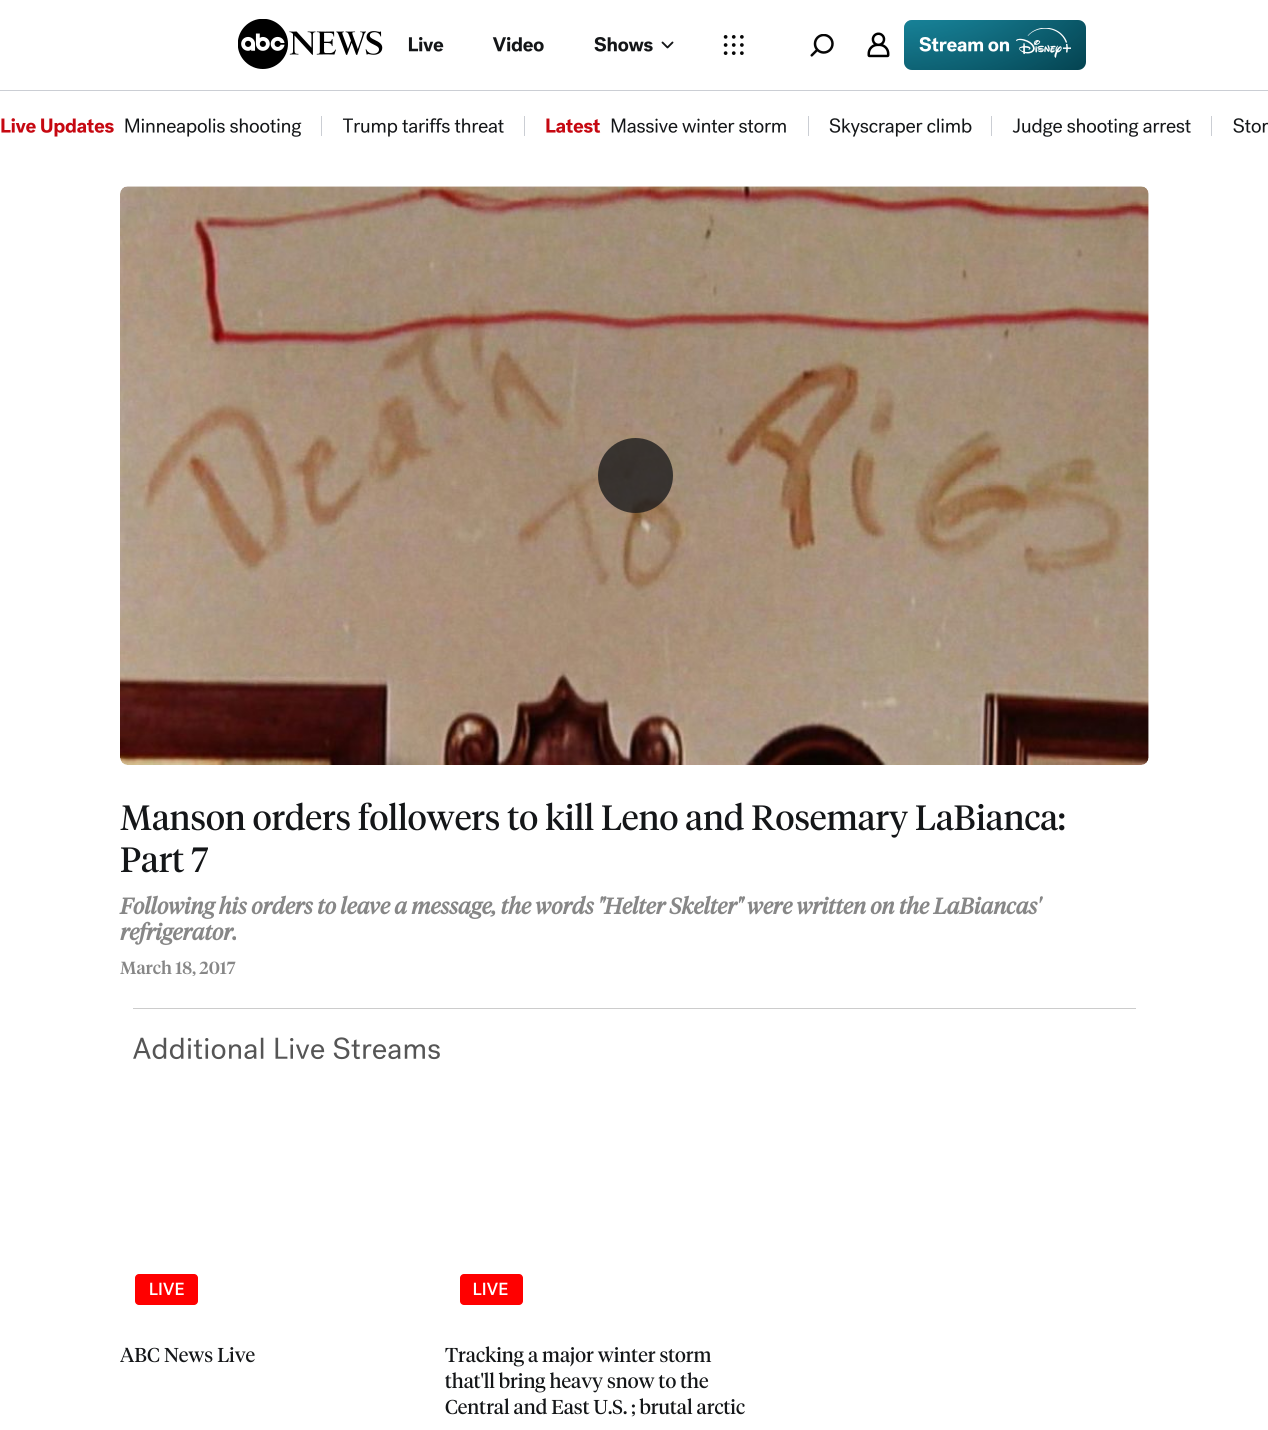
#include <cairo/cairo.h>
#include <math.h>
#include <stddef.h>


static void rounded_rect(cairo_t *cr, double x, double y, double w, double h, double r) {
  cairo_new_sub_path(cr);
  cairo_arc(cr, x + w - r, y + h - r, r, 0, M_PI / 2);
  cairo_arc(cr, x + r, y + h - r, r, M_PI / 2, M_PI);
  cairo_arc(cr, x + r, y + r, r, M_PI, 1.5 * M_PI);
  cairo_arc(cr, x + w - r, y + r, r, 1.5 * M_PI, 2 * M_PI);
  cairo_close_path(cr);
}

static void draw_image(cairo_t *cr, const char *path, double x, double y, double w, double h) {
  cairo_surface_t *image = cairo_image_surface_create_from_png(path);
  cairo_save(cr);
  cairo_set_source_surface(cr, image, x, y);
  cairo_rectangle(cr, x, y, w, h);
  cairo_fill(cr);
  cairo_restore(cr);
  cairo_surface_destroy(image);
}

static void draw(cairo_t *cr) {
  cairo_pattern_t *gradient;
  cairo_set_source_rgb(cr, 1, 1, 1);
  cairo_paint(cr);
  draw_image(cr, "images/1.png", 238, 19, 145, 50);
  draw_image(cr, "images/2.png", 408, 37, 36, 15);
  draw_image(cr, "images/3.png", 492, 37, 52, 15);
  draw_image(cr, "images/4.png", 594, 37, 59, 15);
  draw_image(cr, "images/5.png", 661, 41, 13, 8);
  draw_image(cr, "images/6.png", 723, 35, 21, 20);
  draw_image(cr, "images/7.png", 810, 34, 24, 23);
  draw_image(cr, "images/8.png", 867, 32, 23, 26);
  cairo_set_source_rgb(cr, 5 / 255.0, 69 / 255.0, 83 / 255.0);
  rounded_rect(cr, 904, 20, 182, 50, 8);
  cairo_fill(cr);
  gradient = cairo_pattern_create_radial(0, 0, 0, 0, 0, 1);
  cairo_pattern_set_matrix(gradient, &(cairo_matrix_t){1.0 / 274, 0, 0, 1.0 / 175, -1.0 * 886 / 274, -1.0 * -55 / 175});
  cairo_pattern_add_color_stop_rgba(gradient, 0, 51 / 255.0, 221 / 255.0, 1, 0.7);
  cairo_pattern_add_color_stop_rgba(gradient, 1, 51 / 255.0, 221 / 255.0, 1, 0);
  cairo_set_source(cr, gradient);
  cairo_pattern_destroy(gradient);
  rounded_rect(cr, 904, 20, 182, 50, 8);
  cairo_fill(cr);
  draw_image(cr, "images/9.png", 919, 37, 91, 15);
  draw_image(cr, "images/10.png", 1016, 28, 55, 30);
  cairo_set_source_rgb(cr, 203 / 255.0, 206 / 255.0, 212 / 255.0);
  cairo_rectangle(cr, 0, 90, 1268, 1);
  cairo_fill(cr);
  draw_image(cr, "images/11.png", 1, 118, 113, 19);
  draw_image(cr, "images/12.png", 125, 118, 177, 19);
  cairo_rectangle(cr, 321, 116, 1, 20);
  cairo_fill(cr);
  draw_image(cr, "images/13.png", 342, 118, 162, 19);
  cairo_rectangle(cr, 524, 116, 1, 20);
  cairo_fill(cr);
  draw_image(cr, "images/14.png", 546, 118, 55, 15);
  draw_image(cr, "images/15.png", 611, 118, 175, 15);
  cairo_rectangle(cr, 808, 116, 1, 20);
  cairo_fill(cr);
  draw_image(cr, "images/16.png", 829, 118, 143, 19);
  cairo_rectangle(cr, 991, 116, 1, 20);
  cairo_fill(cr);
  draw_image(cr, "images/17.png", 1012, 118, 179, 19);
  cairo_rectangle(cr, 1211, 116, 1, 20);
  cairo_fill(cr);
  draw_image(cr, "images/18.png", 1233, 118, 35, 15);
  draw_image(cr, "images/19.png", 120, 186, 1029, 579);
  cairo_set_source_rgba(cr, 20 / 255.0, 22 / 255.0, 24 / 255.0, 0.75);
  cairo_arc(cr, 635.5, 475.5, 37.5, 0, 2 * M_PI);
  cairo_fill(cr);
  cairo_set_source_rgb(cr, 204 / 255.0, 204 / 255.0, 204 / 255.0);
  cairo_rectangle(cr, 133, 1008, 1003, 1);
  cairo_fill(cr);
  draw_image(cr, "images/20.png", 133, 1037, 307, 23);
  cairo_set_source_rgb(cr, 1, 0, 0);
  rounded_rect(cr, 135, 1274, 63, 31, 4);
  cairo_fill(cr);
  draw_image(cr, "images/21.png", 150, 1282, 34, 13);
  rounded_rect(cr, 460, 1274, 63, 31, 4);
  cairo_fill(cr);
  draw_image(cr, "images/22.png", 473, 1282, 35, 13);
  cairo_select_font_face(cr, "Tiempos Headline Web", CAIRO_FONT_SLANT_NORMAL, CAIRO_FONT_WEIGHT_NORMAL);
  cairo_set_font_size(cr, 35);
  cairo_set_source_rgb(cr, 20 / 255.0, 22 / 255.0, 24 / 255.0);
  cairo_move_to(cr, 120, 830);
  cairo_show_text(cr, "Manson orders followers to kill Leno and Rosemary LaBianca:");
  cairo_move_to(cr, 120, 872);
  cairo_show_text(cr, "Part 7");
  cairo_select_font_face(cr, "Tiempos Headline Web", CAIRO_FONT_SLANT_ITALIC, CAIRO_FONT_WEIGHT_BOLD);
  cairo_set_font_size(cr, 22.5);
  cairo_set_source_rgb(cr, 135 / 255.0, 135 / 255.0, 135 / 255.0);
  cairo_move_to(cr, 120, 914);
  cairo_show_text(cr, "Following his orders to leave a message, the words \"Helter Skelter\" were written on the LaBiancas'");
  cairo_move_to(cr, 120, 940);
  cairo_show_text(cr, "refrigerator.");
  cairo_select_font_face(cr, "Tiempos Headline Web Medium", CAIRO_FONT_SLANT_NORMAL, CAIRO_FONT_WEIGHT_NORMAL);
  cairo_set_font_size(cr, 17.5);
  cairo_move_to(cr, 120, 974);
  cairo_show_text(cr, "March 18, 2017");
  cairo_select_font_face(cr, "Tiempos Headline Web", CAIRO_FONT_SLANT_NORMAL, CAIRO_FONT_WEIGHT_NORMAL);
  cairo_set_font_size(cr, 20);
  cairo_set_source_rgb(cr, 20 / 255.0, 22 / 255.0, 24 / 255.0);
  cairo_move_to(cr, 120, 1362);
  cairo_show_text(cr, "ABC News Live");
  cairo_move_to(cr, 445, 1362);
  cairo_show_text(cr, "Tracking a major winter storm");
  cairo_move_to(cr, 445, 1388);
  cairo_show_text(cr, "that'll bring heavy snow to the");
  cairo_move_to(cr, 445, 1414);
  cairo_show_text(cr, "Central and East U.S. ; brutal arctic");
}

int main(void) {
  cairo_surface_t *surface = cairo_image_surface_create(CAIRO_FORMAT_RGB24, 1268, 1430);
  cairo_t *cr = cairo_create(surface);
  cairo_font_options_t *options = cairo_font_options_create();
  cairo_font_options_set_hint_metrics(options, CAIRO_HINT_METRICS_OFF);
  cairo_font_options_set_hint_style(options, CAIRO_HINT_STYLE_NONE);
  cairo_set_font_options(cr, options);
  cairo_set_miter_limit(cr, 4);
  draw(cr);
  cairo_surface_write_to_png(surface, "out.png");
  cairo_font_options_destroy(options);
  cairo_destroy(cr);
  cairo_surface_destroy(surface);
  return 0;
}
